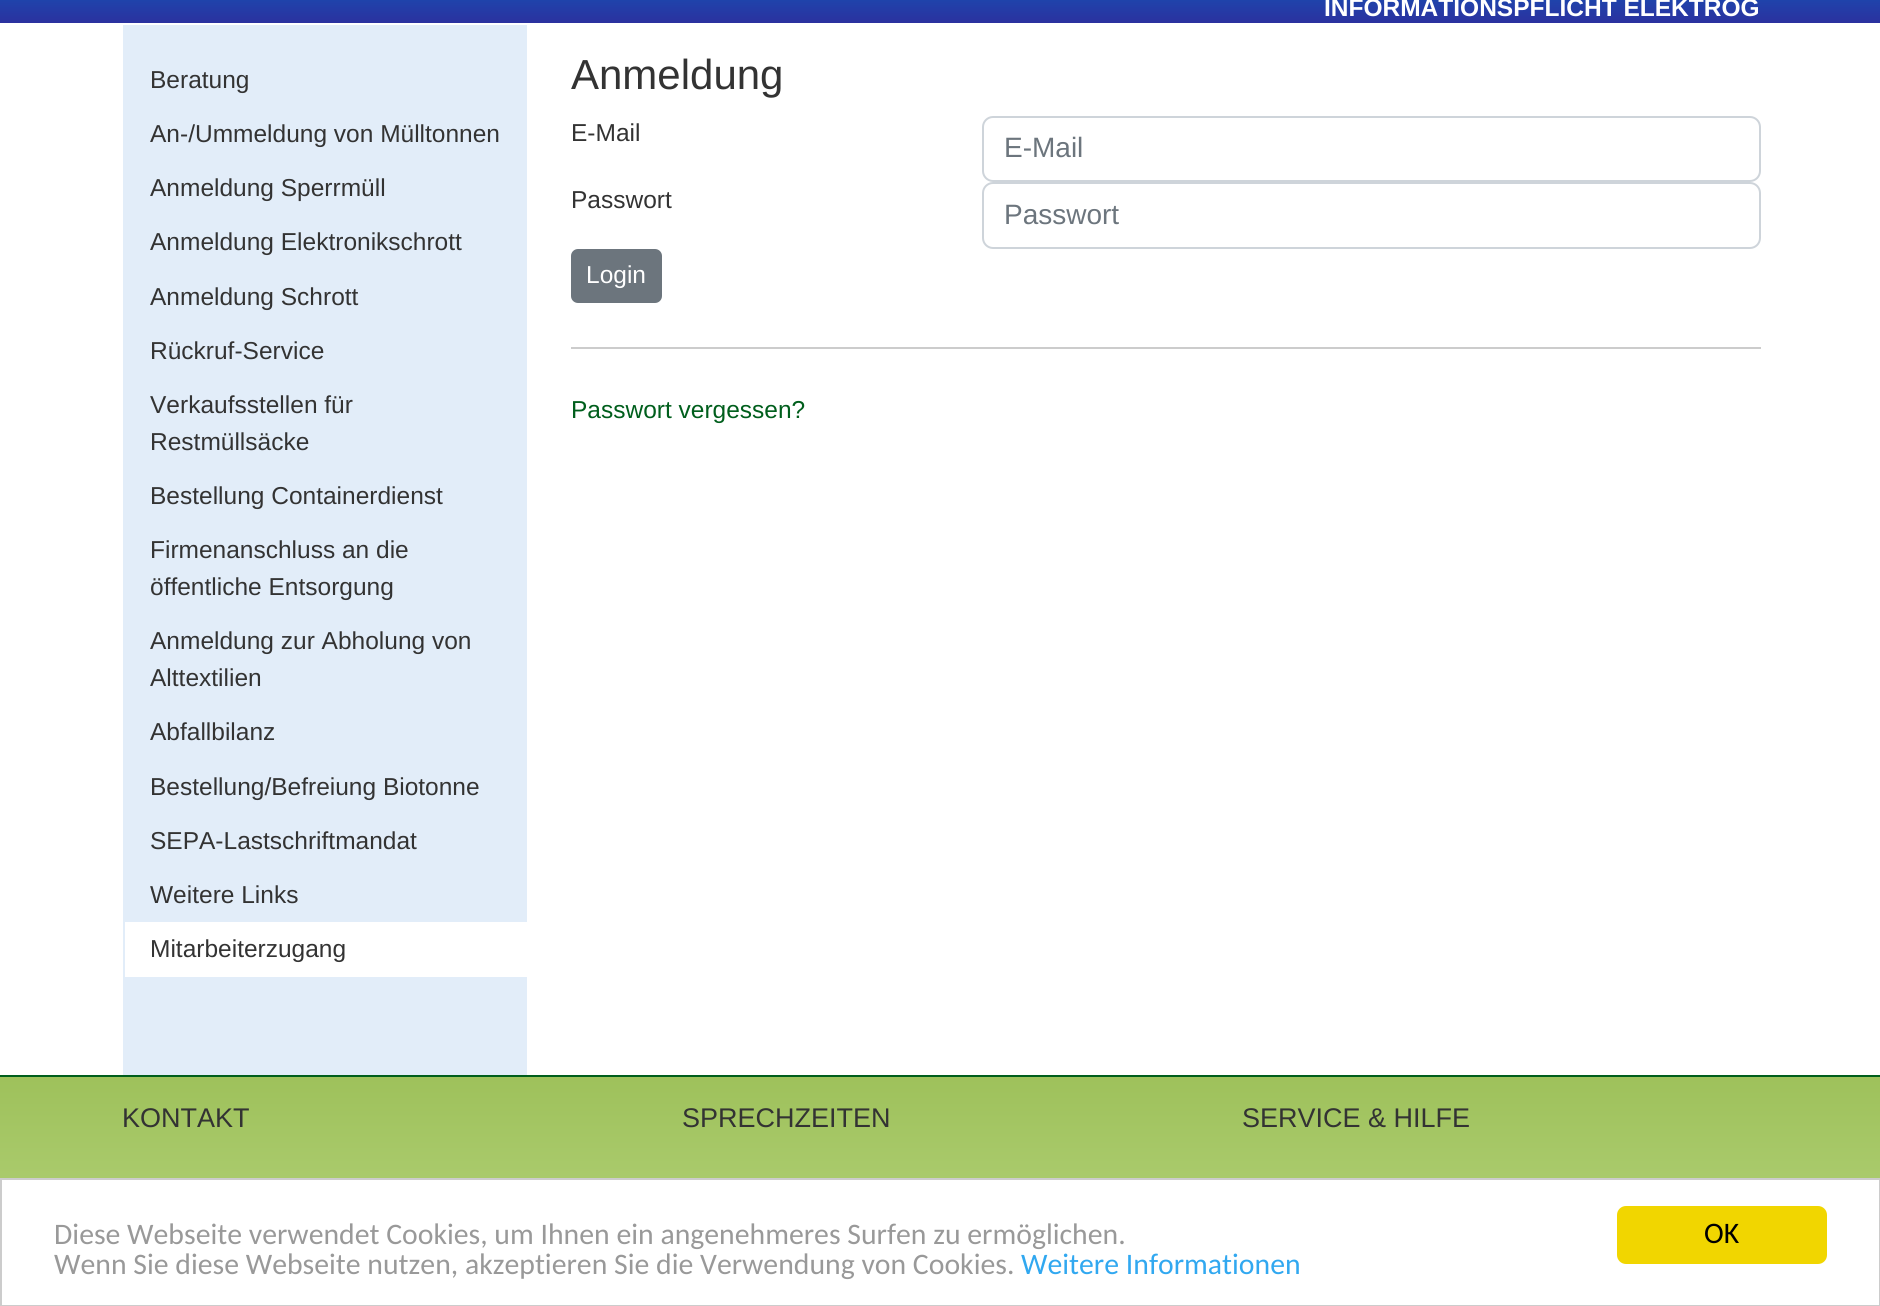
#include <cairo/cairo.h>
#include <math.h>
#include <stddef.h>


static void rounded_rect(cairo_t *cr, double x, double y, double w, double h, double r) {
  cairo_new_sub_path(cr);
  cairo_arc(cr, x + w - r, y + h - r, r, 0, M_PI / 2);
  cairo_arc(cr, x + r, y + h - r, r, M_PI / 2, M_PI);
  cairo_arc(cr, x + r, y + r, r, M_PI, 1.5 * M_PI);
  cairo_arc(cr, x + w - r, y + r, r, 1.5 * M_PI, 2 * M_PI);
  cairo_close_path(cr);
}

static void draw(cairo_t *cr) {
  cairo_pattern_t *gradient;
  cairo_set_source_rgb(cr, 1, 1, 1);
  cairo_paint(cr);
  gradient = cairo_pattern_create_linear(941, -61, 941, 23);
  cairo_pattern_add_color_stop_rgba(gradient, 0, 0, 115 / 255.0, 203 / 255.0, 1);
  cairo_pattern_add_color_stop_rgba(gradient, 1, 43 / 255.0, 49 / 255.0, 159 / 255.0, 1);
  cairo_set_source(cr, gradient);
  cairo_pattern_destroy(gradient);
  cairo_rectangle(cr, 0, 0, 1880, 23);
  cairo_fill(cr);
  cairo_set_source_rgb(cr, 226 / 255.0, 237 / 255.0, 249 / 255.0);
  cairo_rectangle(cr, 123, 25, 404, 1050);
  cairo_fill(cr);
  cairo_set_source_rgb(cr, 1, 1, 1);
  cairo_rectangle(cr, 125, 922, 402, 55);
  cairo_fill(cr);
  rounded_rect(cr, 983, 117, 777, 64, 10);
  cairo_set_source_rgb(cr, 206 / 255.0, 212 / 255.0, 218 / 255.0);
  cairo_stroke(cr);
  rounded_rect(cr, 983, 183, 777, 65, 10);
  cairo_stroke(cr);
  cairo_set_source_rgb(cr, 108 / 255.0, 117 / 255.0, 125 / 255.0);
  rounded_rect(cr, 572, 250, 89, 52, 6);
  cairo_fill_preserve(cr);
  cairo_stroke(cr);
  cairo_set_source_rgb(cr, 204 / 255.0, 204 / 255.0, 204 / 255.0);
  cairo_rectangle(cr, 571, 347, 1190, 2);
  cairo_fill(cr);
  gradient = cairo_pattern_create_linear(941, 1076, 941, 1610);
  cairo_pattern_add_color_stop_rgba(gradient, 0, 158 / 255.0, 193 / 255.0, 91 / 255.0, 1);
  cairo_pattern_add_color_stop_rgba(gradient, 1, 218 / 255.0, 241 / 255.0, 176 / 255.0, 1);
  cairo_set_source(cr, gradient);
  cairo_pattern_destroy(gradient);
  cairo_rectangle(cr, 0, 1077, 1880, 101);
  cairo_fill(cr);
  cairo_set_source_rgb(cr, 0, 94 / 255.0, 28 / 255.0);
  cairo_rectangle(cr, 0, 1075, 1880, 2);
  cairo_fill(cr);
  cairo_rectangle(cr, 1, 1179, 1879, 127);
  cairo_set_source_rgb(cr, 204 / 255.0, 204 / 255.0, 204 / 255.0);
  cairo_stroke(cr);
  cairo_set_source_rgb(cr, 241 / 255.0, 214 / 255.0, 0);
  rounded_rect(cr, 1617, 1206, 210, 58, 9);
  cairo_fill(cr);
  cairo_select_font_face(cr, "Liberation Sans", CAIRO_FONT_SLANT_NORMAL, CAIRO_FONT_WEIGHT_BOLD);
  cairo_set_font_size(cr, 24.5);
  cairo_set_source_rgb(cr, 1, 1, 1);
  cairo_move_to(cr, 1324, 16);
  cairo_show_text(cr, "INFORMATIONSPFLICHT ELEKTROG");
  cairo_select_font_face(cr, "Liberation Sans", CAIRO_FONT_SLANT_NORMAL, CAIRO_FONT_WEIGHT_NORMAL);
  cairo_set_source_rgb(cr, 51 / 255.0, 51 / 255.0, 51 / 255.0);
  cairo_move_to(cr, 150, 88);
  cairo_show_text(cr, "Beratung");
  cairo_move_to(cr, 150, 142);
  cairo_show_text(cr, "An-/Ummeldung von Mülltonnen");
  cairo_move_to(cr, 150, 196);
  cairo_show_text(cr, "Anmeldung Sperrmüll");
  cairo_move_to(cr, 150, 250);
  cairo_show_text(cr, "Anmeldung Elektronikschrott");
  cairo_move_to(cr, 150, 305);
  cairo_show_text(cr, "Anmeldung Schrott");
  cairo_move_to(cr, 150, 359);
  cairo_show_text(cr, "Rückruf-Service");
  cairo_move_to(cr, 150, 413);
  cairo_show_text(cr, "Verkaufsstellen für");
  cairo_move_to(cr, 150, 450);
  cairo_show_text(cr, "Restmüllsäcke");
  cairo_move_to(cr, 150, 504);
  cairo_show_text(cr, "Bestellung Containerdienst");
  cairo_move_to(cr, 150, 558);
  cairo_show_text(cr, "Firmenanschluss an die");
  cairo_move_to(cr, 150, 595);
  cairo_show_text(cr, "öffentliche Entsorgung");
  cairo_move_to(cr, 150, 649);
  cairo_show_text(cr, "Anmeldung zur Abholung von");
  cairo_move_to(cr, 150, 686);
  cairo_show_text(cr, "Alttextilien");
  cairo_move_to(cr, 150, 740);
  cairo_show_text(cr, "Abfallbilanz");
  cairo_move_to(cr, 150, 795);
  cairo_show_text(cr, "Bestellung/Befreiung Biotonne");
  cairo_move_to(cr, 150, 849);
  cairo_show_text(cr, "SEPA-Lastschriftmandat");
  cairo_move_to(cr, 150, 903);
  cairo_show_text(cr, "Weitere Links");
  cairo_move_to(cr, 150, 957);
  cairo_show_text(cr, "Mitarbeiterzugang");
  cairo_set_font_size(cr, 42);
  cairo_move_to(cr, 571, 89);
  cairo_show_text(cr, "Anmeldung");
  cairo_set_font_size(cr, 24.5);
  cairo_move_to(cr, 571, 141);
  cairo_show_text(cr, "E-Mail");
  cairo_set_font_size(cr, 28);
  cairo_set_source_rgb(cr, 108 / 255.0, 117 / 255.0, 125 / 255.0);
  cairo_move_to(cr, 1004, 157);
  cairo_show_text(cr, "E-Mail");
  cairo_set_font_size(cr, 24.5);
  cairo_set_source_rgb(cr, 51 / 255.0, 51 / 255.0, 51 / 255.0);
  cairo_move_to(cr, 571, 208);
  cairo_show_text(cr, "Passwort");
  cairo_set_font_size(cr, 28);
  cairo_set_source_rgb(cr, 108 / 255.0, 117 / 255.0, 125 / 255.0);
  cairo_move_to(cr, 1004, 224);
  cairo_show_text(cr, "Passwort");
  cairo_set_font_size(cr, 24.5);
  cairo_set_source_rgb(cr, 1, 1, 1);
  cairo_move_to(cr, 586, 283);
  cairo_show_text(cr, "Login");
  cairo_set_source_rgb(cr, 0, 94 / 255.0, 28 / 255.0);
  cairo_move_to(cr, 571, 418);
  cairo_show_text(cr, "Passwort vergessen?");
  cairo_set_font_size(cr, 27);
  cairo_set_source_rgb(cr, 51 / 255.0, 51 / 255.0, 51 / 255.0);
  cairo_move_to(cr, 122, 1127);
  cairo_show_text(cr, "KONTAKT");
  cairo_move_to(cr, 682, 1127);
  cairo_show_text(cr, "SPRECHZEITEN");
  cairo_move_to(cr, 1242, 1127);
  cairo_show_text(cr, "SERVICE & HILFE");
  cairo_select_font_face(cr, "Carlito", CAIRO_FONT_SLANT_NORMAL, CAIRO_FONT_WEIGHT_NORMAL);
  cairo_set_font_size(cr, 29.75);
  cairo_set_source_rgb(cr, 153 / 255.0, 153 / 255.0, 153 / 255.0);
  cairo_move_to(cr, 54, 1244);
  cairo_show_text(cr, "Diese Webseite verwendet Cookies, um Ihnen ein angenehmeres Surfen zu ermöglichen.");
  cairo_move_to(cr, 54, 1274);
  cairo_show_text(cr, "Wenn Sie diese Webseite nutzen, akzeptieren Sie die Verwendung von Cookies.");
  cairo_set_source_rgb(cr, 49 / 255.0, 168 / 255.0, 240 / 255.0);
  cairo_move_to(cr, 1021, 1274);
  cairo_show_text(cr, "Weitere Informationen");
  cairo_set_source_rgb(cr, 0, 0, 0);
  cairo_move_to(cr, 1704, 1243);
  cairo_show_text(cr, "OK");
}

int main(void) {
  cairo_surface_t *surface = cairo_image_surface_create(CAIRO_FORMAT_RGB24, 1880, 1306);
  cairo_t *cr = cairo_create(surface);
  cairo_font_options_t *options = cairo_font_options_create();
  cairo_font_options_set_hint_metrics(options, CAIRO_HINT_METRICS_OFF);
  cairo_font_options_set_hint_style(options, CAIRO_HINT_STYLE_NONE);
  cairo_set_font_options(cr, options);
  cairo_set_miter_limit(cr, 4);
  draw(cr);
  cairo_surface_write_to_png(surface, "out.png");
  cairo_font_options_destroy(options);
  cairo_destroy(cr);
  cairo_surface_destroy(surface);
  return 0;
}
